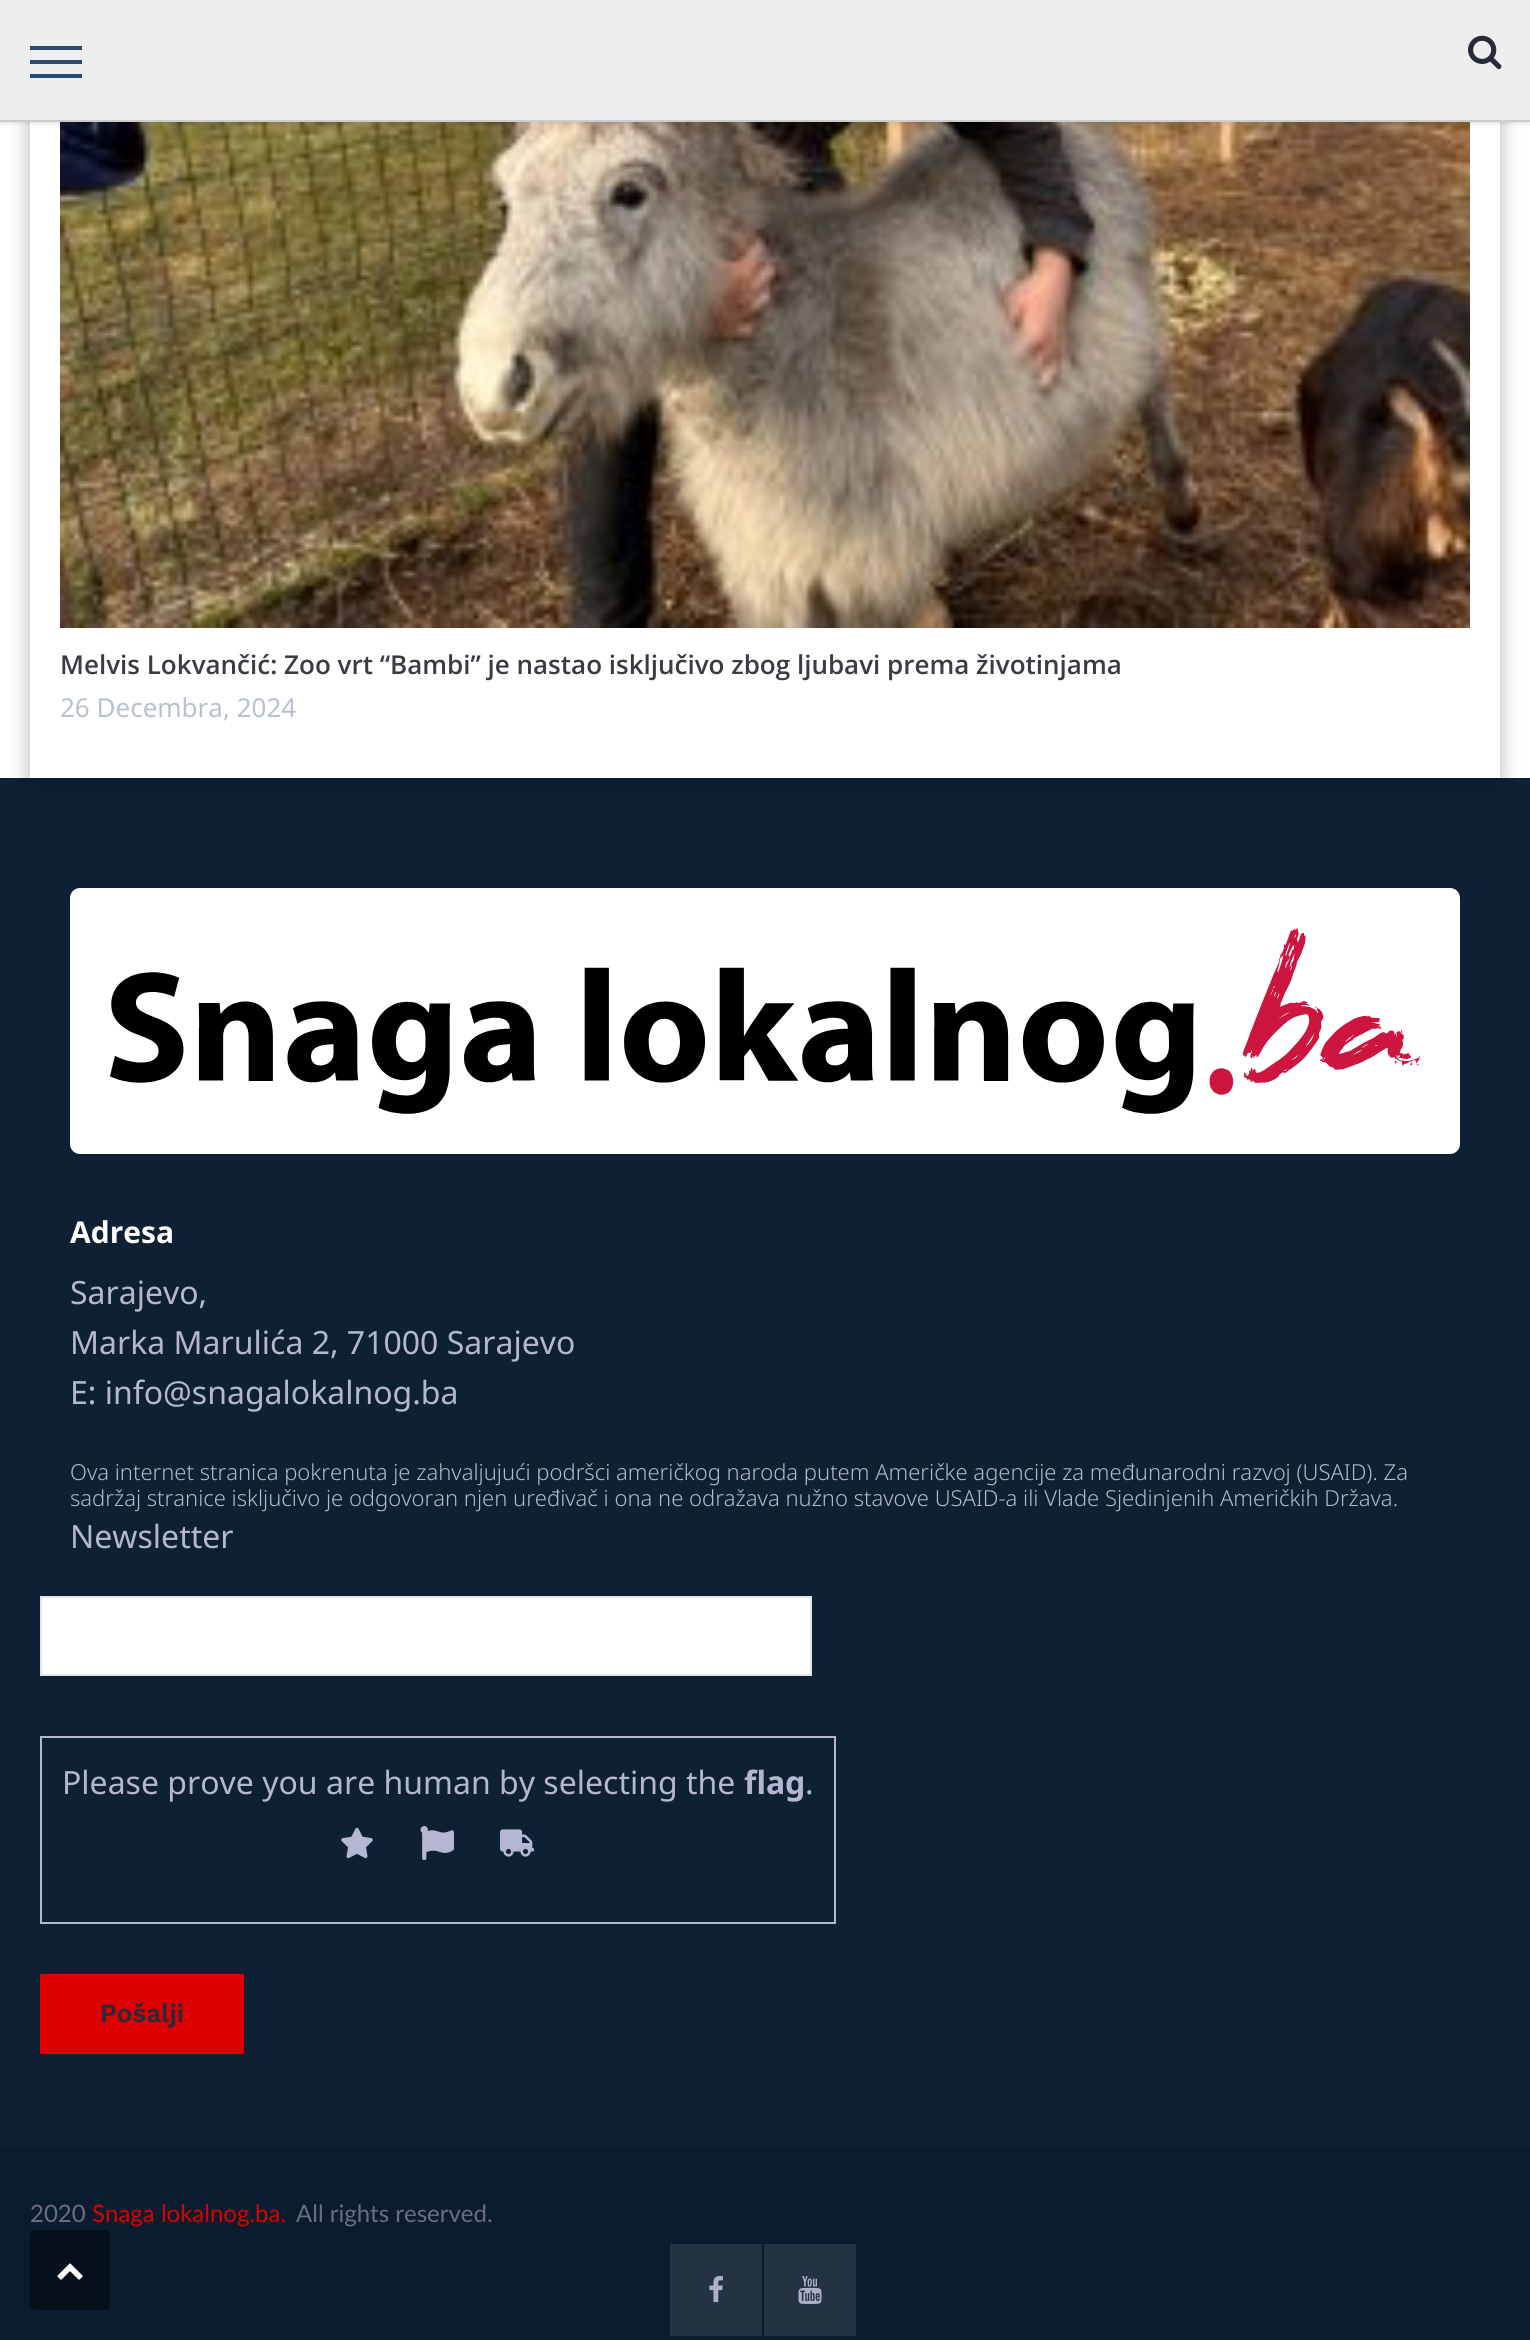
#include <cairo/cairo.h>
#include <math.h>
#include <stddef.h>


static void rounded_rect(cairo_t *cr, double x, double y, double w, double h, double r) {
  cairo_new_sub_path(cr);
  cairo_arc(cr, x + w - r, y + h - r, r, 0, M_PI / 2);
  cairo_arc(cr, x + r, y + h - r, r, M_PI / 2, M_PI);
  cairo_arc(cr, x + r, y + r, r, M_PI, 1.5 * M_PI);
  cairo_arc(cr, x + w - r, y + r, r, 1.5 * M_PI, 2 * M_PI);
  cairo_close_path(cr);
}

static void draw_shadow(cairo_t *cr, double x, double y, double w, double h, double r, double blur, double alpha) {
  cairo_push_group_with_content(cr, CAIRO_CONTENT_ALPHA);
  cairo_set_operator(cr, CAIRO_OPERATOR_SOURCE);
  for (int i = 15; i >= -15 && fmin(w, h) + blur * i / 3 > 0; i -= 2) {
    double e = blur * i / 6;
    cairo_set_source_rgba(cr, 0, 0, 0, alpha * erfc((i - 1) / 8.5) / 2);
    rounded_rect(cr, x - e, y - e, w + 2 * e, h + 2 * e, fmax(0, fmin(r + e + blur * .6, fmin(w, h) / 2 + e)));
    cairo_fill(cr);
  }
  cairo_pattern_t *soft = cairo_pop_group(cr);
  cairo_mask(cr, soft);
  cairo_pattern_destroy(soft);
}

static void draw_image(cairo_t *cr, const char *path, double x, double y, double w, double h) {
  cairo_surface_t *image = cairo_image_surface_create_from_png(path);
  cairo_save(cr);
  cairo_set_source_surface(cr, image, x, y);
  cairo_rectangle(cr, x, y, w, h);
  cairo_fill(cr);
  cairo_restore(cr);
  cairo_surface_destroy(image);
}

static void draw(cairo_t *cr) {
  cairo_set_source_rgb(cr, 1, 1, 1);
  cairo_paint(cr);
  cairo_set_source_rgb(cr, 13 / 255.0, 32 / 255.0, 52 / 255.0);
  cairo_rectangle(cr, 0, 778, 1530, 1370);
  cairo_fill(cr);
  cairo_save(cr);
  cairo_set_fill_rule(cr, CAIRO_FILL_RULE_EVEN_ODD);
  cairo_new_path(cr);
  cairo_move_to(cr, 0, 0);
  cairo_line_to(cr, 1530, 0);
  cairo_line_to(cr, 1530, 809);
  cairo_line_to(cr, 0, 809);
  cairo_close_path(cr);
  cairo_move_to(cr, 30, -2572);
  cairo_line_to(cr, 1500, -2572);
  cairo_line_to(cr, 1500, 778);
  cairo_line_to(cr, 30, 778);
  cairo_close_path(cr);
  cairo_clip(cr);
  cairo_set_source_rgb(cr, 0, 0, 0);
  draw_shadow(cr, 30, -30, 1470, 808, 0, 10, 0.3);
  cairo_restore(cr);
  draw_image(cr, "images/2.png", 60, 122, 1410, 506);
  cairo_set_source_rgb(cr, 0, 0, 0);
  draw_shadow(cr, 0, 2, 1530, 122, 0, 2, 0.1);
  cairo_set_source_rgb(cr, 238 / 255.0, 238 / 255.0, 238 / 255.0);
  cairo_rectangle(cr, 0, 0, 1530, 120);
  cairo_fill(cr);
  cairo_set_source_rgb(cr, 204 / 255.0, 204 / 255.0, 204 / 255.0);
  cairo_rectangle(cr, 0, 120, 1530, 2);
  cairo_fill(cr);
  cairo_set_source_rgb(cr, 41 / 255.0, 75 / 255.0, 112 / 255.0);
  cairo_rectangle(cr, 30, 46, 52, 4);
  cairo_fill(cr);
  cairo_rectangle(cr, 30, 60, 52, 4);
  cairo_fill(cr);
  cairo_rectangle(cr, 30, 74, 52, 4);
  cairo_fill(cr);
  draw_image(cr, "images/1.png", 1468, 35, 34, 35);
  cairo_set_source_rgb(cr, 1, 1, 1);
  rounded_rect(cr, 70, 888, 1390, 266, 10);
  cairo_fill(cr);
  draw_image(cr, "images/3.png", 110, 928, 1310, 186);
  cairo_rectangle(cr, 41, 1597, 770, 78);
  cairo_fill_preserve(cr);
  cairo_set_source_rgb(cr, 229 / 255.0, 229 / 255.0, 229 / 255.0);
  cairo_stroke(cr);
  cairo_rectangle(cr, 41, 1737, 794, 186);
  cairo_set_source_rgb(cr, 181 / 255.0, 183 / 255.0, 210 / 255.0);
  cairo_stroke(cr);
  draw_image(cr, "images/4.png", 341, 1827, 32, 32);
  draw_image(cr, "images/5.png", 420, 1826, 34, 34);
  draw_image(cr, "images/6.png", 500, 1829, 34, 28);
  cairo_set_source_rgb(cr, 221 / 255.0, 0, 0);
  cairo_rectangle(cr, 40, 1974, 204, 80);
  cairo_fill(cr);
  cairo_set_source_rgb(cr, 10 / 255.0, 28 / 255.0, 46 / 255.0);
  cairo_rectangle(cr, 0, 2148, 1530, 192);
  cairo_fill(cr);
  cairo_set_source_rgb(cr, 6 / 255.0, 17 / 255.0, 28 / 255.0);
  rounded_rect(cr, 30, 2230, 80, 80, 4);
  cairo_fill(cr);
  draw_image(cr, "images/7.png", 57, 2263, 26, 17);
  cairo_set_source_rgb(cr, 35 / 255.0, 51 / 255.0, 67 / 255.0);
  cairo_rectangle(cr, 670, 2244, 92, 92);
  cairo_fill(cr);
  draw_image(cr, "images/8.png", 709, 2276, 14, 26);
  cairo_rectangle(cr, 764, 2244, 92, 92);
  cairo_fill(cr);
  draw_image(cr, "images/9.png", 798, 2276, 24, 28);
  cairo_select_font_face(cr, "Open Sans SemiBold", CAIRO_FONT_SLANT_NORMAL, CAIRO_FONT_WEIGHT_NORMAL);
  cairo_set_font_size(cr, 26);
  cairo_set_source_rgb(cr, 60 / 255.0, 58 / 255.0, 66 / 255.0);
  cairo_move_to(cr, 60, 674);
  cairo_show_text(cr, "Melvis Lokvančić: Zoo vrt “Bambi” je nastao isključivo zbog ljubavi prema životinjama");
  cairo_select_font_face(cr, "Noto Sans", CAIRO_FONT_SLANT_NORMAL, CAIRO_FONT_WEIGHT_NORMAL);
  cairo_set_source_rgb(cr, 185 / 255.0, 193 / 255.0, 207 / 255.0);
  cairo_move_to(cr, 60, 717);
  cairo_show_text(cr, "26 Decembra, 2024");
  cairo_select_font_face(cr, "Open Sans", CAIRO_FONT_SLANT_NORMAL, CAIRO_FONT_WEIGHT_BOLD);
  cairo_set_font_size(cr, 30);
  cairo_set_source_rgb(cr, 1, 1, 1);
  cairo_move_to(cr, 70, 1243);
  cairo_show_text(cr, "Adresa");
  cairo_select_font_face(cr, "Noto Sans", CAIRO_FONT_SLANT_NORMAL, CAIRO_FONT_WEIGHT_NORMAL);
  cairo_set_font_size(cr, 32);
  cairo_set_source_rgb(cr, 181 / 255.0, 183 / 255.0, 210 / 255.0);
  cairo_move_to(cr, 70, 1304);
  cairo_show_text(cr, "Sarajevo,");
  cairo_move_to(cr, 70, 1354);
  cairo_show_text(cr, "Marka Marulića 2, 71000 Sarajevo");
  cairo_move_to(cr, 70, 1404);
  cairo_show_text(cr, "E: info@snagalokalnog.ba");
  cairo_select_font_face(cr, "Noto Sans Light", CAIRO_FONT_SLANT_NORMAL, CAIRO_FONT_WEIGHT_NORMAL);
  cairo_set_font_size(cr, 22);
  cairo_move_to(cr, 70, 1480);
  cairo_show_text(cr, "Ova internet stranica pokrenuta je zahvaljujući podršci američkog naroda putem Američke agencije za međunarodni razvoj (USAID). Za");
  cairo_move_to(cr, 70, 1506);
  cairo_show_text(cr, "sadržaj stranice isključivo je odgovoran njen uređivač i ona ne odražava nužno stavove USAID-a ili Vlade Sjedinjenih Američkih Država.");
  cairo_select_font_face(cr, "Noto Sans", CAIRO_FONT_SLANT_NORMAL, CAIRO_FONT_WEIGHT_NORMAL);
  cairo_set_font_size(cr, 32);
  cairo_move_to(cr, 70, 1548);
  cairo_show_text(cr, "Newsletter");
  cairo_move_to(cr, 62, 1794);
  cairo_show_text(cr, "Please prove you are human by selecting the");
  cairo_select_font_face(cr, "Noto Sans", CAIRO_FONT_SLANT_NORMAL, CAIRO_FONT_WEIGHT_BOLD);
  cairo_move_to(cr, 744, 1794);
  cairo_show_text(cr, "flag");
  cairo_select_font_face(cr, "Noto Sans", CAIRO_FONT_SLANT_NORMAL, CAIRO_FONT_WEIGHT_NORMAL);
  cairo_move_to(cr, 805, 1794);
  cairo_show_text(cr, ".");
  cairo_select_font_face(cr, "Work Sans SemiBold", CAIRO_FONT_SLANT_NORMAL, CAIRO_FONT_WEIGHT_NORMAL);
  cairo_set_font_size(cr, 26);
  cairo_set_source_rgb(cr, 40 / 255.0, 41 / 255.0, 58 / 255.0);
  cairo_move_to(cr, 100, 2022);
  cairo_show_text(cr, "Pošalji");
  cairo_select_font_face(cr, "Lato", CAIRO_FONT_SLANT_NORMAL, CAIRO_FONT_WEIGHT_NORMAL);
  cairo_set_font_size(cr, 24);
  cairo_set_source_rgb(cr, 108 / 255.0, 109 / 255.0, 131 / 255.0);
  cairo_move_to(cr, 30, 2222);
  cairo_show_text(cr, "2020");
  cairo_set_source_rgb(cr, 221 / 255.0, 0, 0);
  cairo_move_to(cr, 92, 2222);
  cairo_show_text(cr, "Snaga lokalnog.ba.");
  cairo_set_source_rgb(cr, 108 / 255.0, 109 / 255.0, 131 / 255.0);
  cairo_move_to(cr, 296, 2222);
  cairo_show_text(cr, "All rights reserved.");
}

int main(void) {
  cairo_surface_t *surface = cairo_image_surface_create(CAIRO_FORMAT_RGB24, 1530, 2340);
  cairo_t *cr = cairo_create(surface);
  cairo_font_options_t *options = cairo_font_options_create();
  cairo_font_options_set_hint_metrics(options, CAIRO_HINT_METRICS_OFF);
  cairo_font_options_set_hint_style(options, CAIRO_HINT_STYLE_NONE);
  cairo_set_font_options(cr, options);
  cairo_set_miter_limit(cr, 4);
  draw(cr);
  cairo_surface_write_to_png(surface, "out.png");
  cairo_font_options_destroy(options);
  cairo_destroy(cr);
  cairo_surface_destroy(surface);
  return 0;
}
